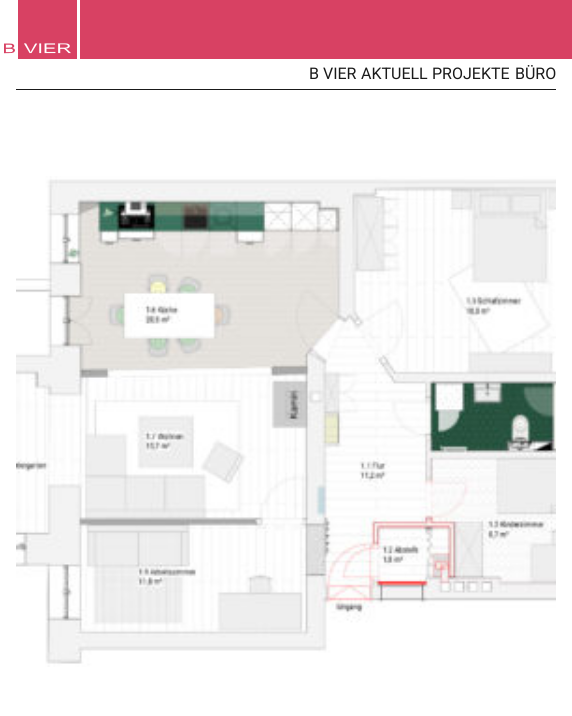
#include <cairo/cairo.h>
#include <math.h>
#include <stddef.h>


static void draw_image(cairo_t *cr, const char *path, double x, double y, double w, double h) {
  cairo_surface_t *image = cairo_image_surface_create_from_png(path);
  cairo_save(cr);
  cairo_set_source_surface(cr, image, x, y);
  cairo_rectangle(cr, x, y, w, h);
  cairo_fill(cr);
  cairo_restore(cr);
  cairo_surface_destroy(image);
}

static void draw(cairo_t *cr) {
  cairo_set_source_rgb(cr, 1, 1, 1);
  cairo_paint(cr);
  draw_image(cr, "images/1.png", 4, 0, 73, 59);
  cairo_set_source_rgb(cr, 216 / 255.0, 65 / 255.0, 99 / 255.0);
  cairo_rectangle(cr, 80, 0, 492, 59);
  cairo_fill(cr);
  cairo_set_source_rgb(cr, 26 / 255.0, 26 / 255.0, 26 / 255.0);
  cairo_rectangle(cr, 16, 89, 540, 1);
  cairo_fill(cr);
  draw_image(cr, "images/2.png", 16, 176, 540, 491);
  cairo_select_font_face(cr, "Roboto", CAIRO_FONT_SLANT_NORMAL, CAIRO_FONT_WEIGHT_NORMAL);
  cairo_set_font_size(cr, 16);
  cairo_move_to(cr, 309, 79);
  cairo_show_text(cr, "B VIER");
  cairo_move_to(cr, 361, 79);
  cairo_show_text(cr, "AKTUELL");
  cairo_move_to(cr, 432, 79);
  cairo_show_text(cr, "PROJEKTE");
  cairo_move_to(cr, 515, 79);
  cairo_show_text(cr, "BÜRO");
}

int main(void) {
  cairo_surface_t *surface = cairo_image_surface_create(CAIRO_FORMAT_RGB24, 572, 716);
  cairo_t *cr = cairo_create(surface);
  cairo_font_options_t *options = cairo_font_options_create();
  cairo_font_options_set_hint_metrics(options, CAIRO_HINT_METRICS_OFF);
  cairo_font_options_set_hint_style(options, CAIRO_HINT_STYLE_NONE);
  cairo_set_font_options(cr, options);
  cairo_set_miter_limit(cr, 4);
  draw(cr);
  cairo_surface_write_to_png(surface, "out.png");
  cairo_font_options_destroy(options);
  cairo_destroy(cr);
  cairo_surface_destroy(surface);
  return 0;
}
